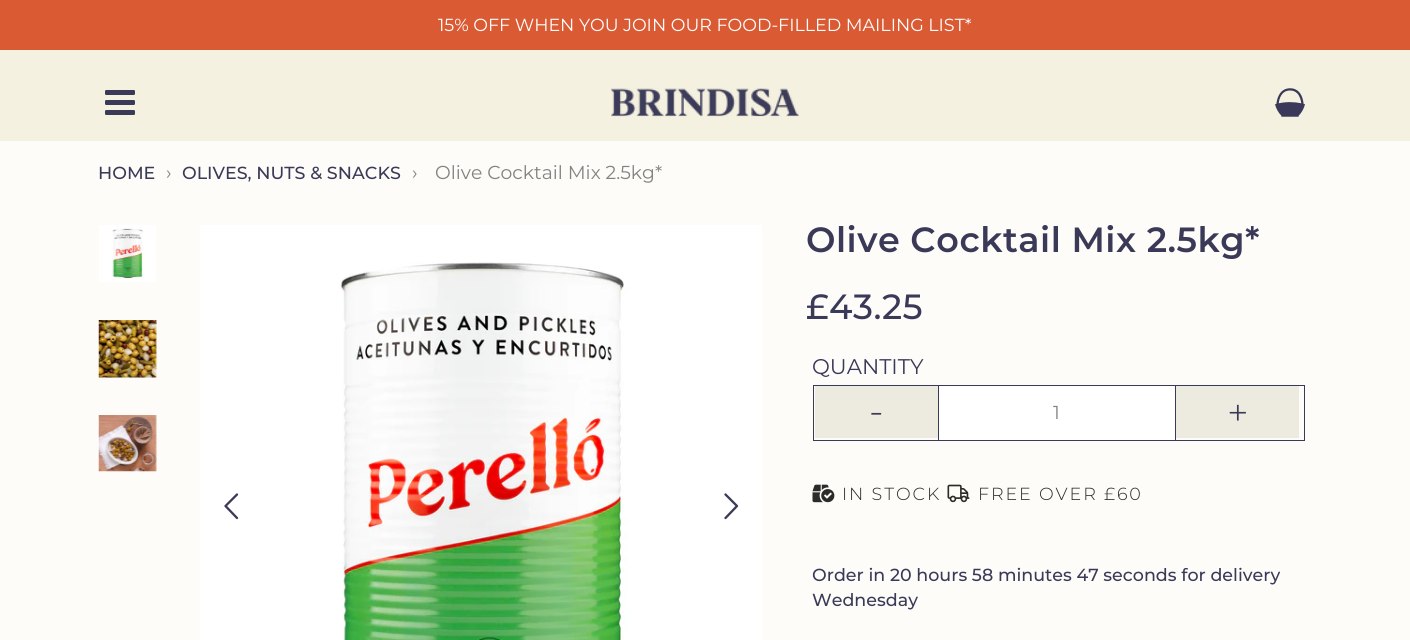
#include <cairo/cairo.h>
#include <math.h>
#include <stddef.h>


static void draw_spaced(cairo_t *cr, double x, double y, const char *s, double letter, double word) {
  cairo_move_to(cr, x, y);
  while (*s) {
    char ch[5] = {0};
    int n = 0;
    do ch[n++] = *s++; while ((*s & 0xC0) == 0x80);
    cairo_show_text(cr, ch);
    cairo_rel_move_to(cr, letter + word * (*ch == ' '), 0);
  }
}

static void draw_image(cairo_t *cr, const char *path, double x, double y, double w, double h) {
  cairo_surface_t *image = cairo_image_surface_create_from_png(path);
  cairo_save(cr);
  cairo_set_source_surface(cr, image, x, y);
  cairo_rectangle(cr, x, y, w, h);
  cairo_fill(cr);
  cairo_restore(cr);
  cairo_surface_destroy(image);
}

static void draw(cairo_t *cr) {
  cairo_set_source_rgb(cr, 253 / 255.0, 252 / 255.0, 249 / 255.0);
  cairo_paint(cr);
  cairo_set_source_rgb(cr, 218 / 255.0, 90 / 255.0, 51 / 255.0);
  cairo_rectangle(cr, 0, 0, 1410, 50);
  cairo_fill(cr);
  cairo_set_source_rgb(cr, 245 / 255.0, 241 / 255.0, 224 / 255.0);
  cairo_rectangle(cr, 0, 50, 1410, 91);
  cairo_fill(cr);
  draw_image(cr, "images/1.png", 105, 90, 30, 25);
  draw_image(cr, "images/2.png", 611, 88, 188, 29);
  draw_image(cr, "images/3.png", 1275, 88, 30, 29);
  draw_image(cr, "images/4.png", 99, 225, 57, 57);
  draw_image(cr, "images/5.png", 98, 320, 59, 58);
  draw_image(cr, "images/6.png", 98, 415, 59, 57);
  draw_image(cr, "images/7.png", 200, 225, 562, 415);
  cairo_new_path(cr);
  cairo_move_to(cr, 237, 518);
  cairo_line_to(cr, 225.5, 506);
  cairo_line_to(cr, 237, 494.5);
  cairo_set_source_rgb(cr, 58 / 255.0, 58 / 255.0, 88 / 255.0);
  cairo_set_line_width(cr, 2.3);
  cairo_set_line_cap(cr, CAIRO_LINE_CAP_ROUND);
  cairo_set_line_join(cr, CAIRO_LINE_JOIN_ROUND);
  cairo_stroke(cr);
  cairo_new_path(cr);
  cairo_move_to(cr, 725.5, 494.5);
  cairo_line_to(cr, 737, 506);
  cairo_line_to(cr, 725.5, 518);
  cairo_stroke(cr);
  cairo_rectangle(cr, 813.5, 385.5, 491, 55);
  cairo_set_line_width(cr, 1);
  cairo_set_line_cap(cr, CAIRO_LINE_CAP_BUTT);
  cairo_set_line_join(cr, CAIRO_LINE_JOIN_MITER);
  cairo_stroke(cr);
  cairo_set_source_rgb(cr, 237 / 255.0, 234 / 255.0, 223 / 255.0);
  cairo_rectangle(cr, 815, 386, 123, 52);
  cairo_fill(cr);
  cairo_set_source_rgb(cr, 1, 1, 1);
  cairo_rectangle(cr, 939, 386, 236, 54);
  cairo_fill(cr);
  cairo_set_source_rgb(cr, 58 / 255.0, 58 / 255.0, 88 / 255.0);
  cairo_rectangle(cr, 1175, 386, 1, 54);
  cairo_fill(cr);
  cairo_rectangle(cr, 938, 386, 1, 54);
  cairo_fill(cr);
  cairo_set_source_rgb(cr, 237 / 255.0, 234 / 255.0, 223 / 255.0);
  cairo_rectangle(cr, 1176, 386, 123, 52);
  cairo_fill(cr);
  draw_image(cr, "images/8.png", 812, 484, 23, 19);
  draw_image(cr, "images/9.png", 947, 484, 23, 19);
  cairo_select_font_face(cr, "Montserrat Thin", CAIRO_FONT_SLANT_NORMAL, CAIRO_FONT_WEIGHT_NORMAL);
  cairo_set_font_size(cr, 17.5);
  cairo_set_source_rgb(cr, 1, 1, 1);
  cairo_move_to(cr, 438, 31);
  cairo_show_text(cr, "15% OFF WHEN YOU JOIN OUR FOOD-FILLED MAILING LIST*");
  cairo_select_font_face(cr, "Montserrat Medium", CAIRO_FONT_SLANT_NORMAL, CAIRO_FONT_WEIGHT_NORMAL);
  cairo_set_source_rgb(cr, 58 / 255.0, 58 / 255.0, 88 / 255.0);
  cairo_move_to(cr, 98, 179);
  cairo_show_text(cr, "HOME");
  cairo_select_font_face(cr, "Montserrat Thin", CAIRO_FONT_SLANT_NORMAL, CAIRO_FONT_WEIGHT_NORMAL);
  cairo_set_font_size(cr, 18.75);
  cairo_set_source_rgb(cr, 130 / 255.0, 130 / 255.0, 130 / 255.0);
  cairo_move_to(cr, 166, 179);
  cairo_show_text(cr, "›");
  cairo_select_font_face(cr, "Montserrat Medium", CAIRO_FONT_SLANT_NORMAL, CAIRO_FONT_WEIGHT_NORMAL);
  cairo_set_font_size(cr, 17.5);
  cairo_set_source_rgb(cr, 58 / 255.0, 58 / 255.0, 88 / 255.0);
  cairo_move_to(cr, 182, 179);
  cairo_show_text(cr, "OLIVES, NUTS & SNACKS");
  cairo_select_font_face(cr, "Montserrat Thin", CAIRO_FONT_SLANT_NORMAL, CAIRO_FONT_WEIGHT_NORMAL);
  cairo_set_font_size(cr, 18.75);
  cairo_set_source_rgb(cr, 130 / 255.0, 130 / 255.0, 130 / 255.0);
  cairo_move_to(cr, 412, 179);
  cairo_show_text(cr, "›");
  cairo_move_to(cr, 435, 179);
  cairo_show_text(cr, "Olive Cocktail Mix 2.5kg*");
  cairo_select_font_face(cr, "Montserrat SemiBold", CAIRO_FONT_SLANT_NORMAL, CAIRO_FONT_WEIGHT_NORMAL);
  cairo_set_font_size(cr, 35);
  cairo_set_source_rgb(cr, 58 / 255.0, 58 / 255.0, 88 / 255.0);
  draw_spaced(cr, 806, 252, "Olive Cocktail Mix 2.5kg*", 0.5, 0);
  cairo_select_font_face(cr, "Montserrat Medium", CAIRO_FONT_SLANT_NORMAL, CAIRO_FONT_WEIGHT_NORMAL);
  draw_spaced(cr, 806, 319, "£43.25", 0.5, 0);
  cairo_select_font_face(cr, "Montserrat Thin", CAIRO_FONT_SLANT_NORMAL, CAIRO_FONT_WEIGHT_NORMAL);
  cairo_set_font_size(cr, 21.25);
  cairo_move_to(cr, 812, 374);
  cairo_show_text(cr, "QUANTITY");
  cairo_select_font_face(cr, "Montserrat Light", CAIRO_FONT_SLANT_NORMAL, CAIRO_FONT_WEIGHT_NORMAL);
  cairo_set_font_size(cr, 38);
  cairo_move_to(cr, 869, 424);
  cairo_show_text(cr, "-");
  cairo_select_font_face(cr, "Montserrat Thin", CAIRO_FONT_SLANT_NORMAL, CAIRO_FONT_WEIGHT_NORMAL);
  cairo_set_font_size(cr, 18.75);
  cairo_set_source_rgb(cr, 130 / 255.0, 130 / 255.0, 130 / 255.0);
  cairo_move_to(cr, 1053, 419);
  cairo_show_text(cr, "1");
  cairo_select_font_face(cr, "Montserrat Light", CAIRO_FONT_SLANT_NORMAL, CAIRO_FONT_WEIGHT_NORMAL);
  cairo_set_font_size(cr, 38);
  cairo_set_source_rgb(cr, 58 / 255.0, 58 / 255.0, 88 / 255.0);
  cairo_move_to(cr, 1227, 426);
  cairo_show_text(cr, "+");
  cairo_set_font_size(cr, 17.5);
  cairo_set_source_rgb(cr, 43 / 255.0, 43 / 255.0, 42 / 255.0);
  draw_spaced(cr, 842, 500, "IN STOCK", 1.9, 0);
  draw_spaced(cr, 978, 500, "FREE OVER £60", 1.9, 0);
  cairo_select_font_face(cr, "Montserrat Medium", CAIRO_FONT_SLANT_NORMAL, CAIRO_FONT_WEIGHT_NORMAL);
  cairo_set_source_rgb(cr, 58 / 255.0, 58 / 255.0, 88 / 255.0);
  cairo_move_to(cr, 812, 581);
  cairo_show_text(cr, "Order in 20 hours 58 minutes 47 seconds for delivery");
  cairo_move_to(cr, 812, 606);
  cairo_show_text(cr, "Wednesday");
}

int main(void) {
  cairo_surface_t *surface = cairo_image_surface_create(CAIRO_FORMAT_RGB24, 1410, 640);
  cairo_t *cr = cairo_create(surface);
  cairo_font_options_t *options = cairo_font_options_create();
  cairo_font_options_set_hint_metrics(options, CAIRO_HINT_METRICS_OFF);
  cairo_font_options_set_hint_style(options, CAIRO_HINT_STYLE_NONE);
  cairo_set_font_options(cr, options);
  cairo_set_miter_limit(cr, 4);
  draw(cr);
  cairo_surface_write_to_png(surface, "out.png");
  cairo_font_options_destroy(options);
  cairo_destroy(cr);
  cairo_surface_destroy(surface);
  return 0;
}
